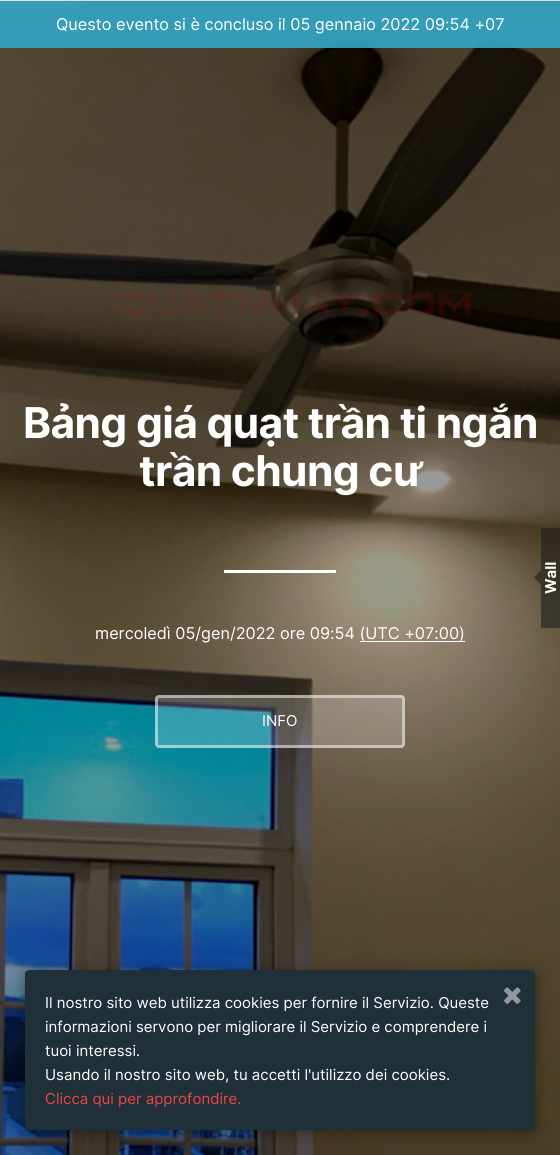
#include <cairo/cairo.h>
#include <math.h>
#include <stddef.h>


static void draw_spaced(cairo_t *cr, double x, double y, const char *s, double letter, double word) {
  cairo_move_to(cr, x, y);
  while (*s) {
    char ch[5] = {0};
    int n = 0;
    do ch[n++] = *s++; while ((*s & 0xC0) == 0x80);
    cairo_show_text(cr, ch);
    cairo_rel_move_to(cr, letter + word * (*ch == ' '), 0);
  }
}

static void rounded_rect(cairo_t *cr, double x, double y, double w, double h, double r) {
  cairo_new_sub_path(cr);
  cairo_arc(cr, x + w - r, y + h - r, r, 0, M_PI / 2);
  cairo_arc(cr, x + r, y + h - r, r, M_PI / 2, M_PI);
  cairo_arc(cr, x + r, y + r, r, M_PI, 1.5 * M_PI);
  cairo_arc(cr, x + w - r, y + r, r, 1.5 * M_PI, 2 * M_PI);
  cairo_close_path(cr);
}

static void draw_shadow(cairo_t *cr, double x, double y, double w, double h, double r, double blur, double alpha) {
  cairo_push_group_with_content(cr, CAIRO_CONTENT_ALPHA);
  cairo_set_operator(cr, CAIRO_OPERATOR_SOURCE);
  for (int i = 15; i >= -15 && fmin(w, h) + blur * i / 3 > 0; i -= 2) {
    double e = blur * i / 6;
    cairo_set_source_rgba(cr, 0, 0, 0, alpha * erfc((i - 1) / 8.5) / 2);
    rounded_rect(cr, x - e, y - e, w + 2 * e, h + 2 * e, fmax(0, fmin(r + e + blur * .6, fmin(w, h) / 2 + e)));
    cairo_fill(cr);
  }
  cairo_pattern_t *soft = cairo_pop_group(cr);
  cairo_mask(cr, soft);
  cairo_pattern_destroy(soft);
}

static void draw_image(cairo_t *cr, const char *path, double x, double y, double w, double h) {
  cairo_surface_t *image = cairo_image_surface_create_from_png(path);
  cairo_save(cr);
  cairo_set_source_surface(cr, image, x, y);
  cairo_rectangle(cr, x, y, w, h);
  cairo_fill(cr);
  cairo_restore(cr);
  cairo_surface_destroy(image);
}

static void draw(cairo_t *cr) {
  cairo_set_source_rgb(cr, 1, 1, 1);
  cairo_paint(cr);
  cairo_set_source_rgb(cr, 221 / 255.0, 221 / 255.0, 221 / 255.0);
  cairo_rectangle(cr, 0, 0, 560, 1);
  cairo_fill(cr);
  draw_image(cr, "images/1.png", 0, 1, 560, 1154);
  cairo_set_source_rgba(cr, 50 / 255.0, 167 / 255.0, 198 / 255.0, 0.9);
  cairo_rectangle(cr, 0, 1, 560, 47);
  cairo_fill(cr);
  cairo_set_source_rgb(cr, 1, 1, 1);
  cairo_rectangle(cr, 224, 570, 112, 3);
  cairo_fill(cr);
  cairo_rectangle(cr, 360, 641, 105, 1);
  cairo_fill(cr);
  cairo_set_source_rgba(cr, 1, 1, 1, 0.2);
  rounded_rect(cr, 155, 695, 250, 53, 4);
  cairo_fill(cr);
  rounded_rect(cr, 156.5, 696.5, 247, 50, 2.5);
  cairo_set_source_rgba(cr, 1, 1, 1, 0.5);
  cairo_set_line_width(cr, 3);
  cairo_stroke(cr);
  cairo_set_source_rgba(cr, 31 / 255.0, 31 / 255.0, 31 / 255.0, 0.6);
  cairo_rectangle(cr, 541, 528, 19, 100);
  cairo_fill(cr);
  cairo_new_path(cr);
  cairo_move_to(cr, 541, 570);
  cairo_line_to(cr, 541, 585);
  cairo_line_to(cr, 534, 577.5);
  cairo_close_path(cr);
  cairo_fill(cr);
  cairo_set_source_rgb(cr, 0, 0, 0);
  draw_shadow(cr, 25, 973, 510, 160, 4, 7.5, 0.4);
  cairo_set_source_rgb(cr, 32 / 255.0, 48 / 255.0, 56 / 255.0);
  rounded_rect(cr, 25, 970, 510, 160, 4);
  cairo_fill(cr);
  draw_image(cr, "images/2.png", 504, 987, 17, 17);
  cairo_select_font_face(cr, "Inter", CAIRO_FONT_SLANT_NORMAL, CAIRO_FONT_WEIGHT_NORMAL);
  cairo_set_font_size(cr, 16.25);
  cairo_set_source_rgb(cr, 1, 1, 1);
  cairo_move_to(cr, 56, 30);
  cairo_show_text(cr, "Questo evento si è concluso il 05 gennaio 2022 09:54 +07");
  cairo_select_font_face(cr, "Inter", CAIRO_FONT_SLANT_NORMAL, CAIRO_FONT_WEIGHT_BOLD);
  cairo_set_font_size(cr, 42.5);
  draw_spaced(cr, 23, 438, "Bảng giá quạt trần ti ngắn", -0.6, 0);
  draw_spaced(cr, 139, 486, "trần chung cư", -0.6, 0);
  cairo_select_font_face(cr, "Inter", CAIRO_FONT_SLANT_NORMAL, CAIRO_FONT_WEIGHT_NORMAL);
  cairo_set_font_size(cr, 16.25);
  cairo_move_to(cr, 95, 639);
  cairo_show_text(cr, "mercoledì 05/gen/2022 ore 09:54 (UTC +07:00)");
  cairo_set_font_size(cr, 15);
  cairo_move_to(cr, 262, 726);
  cairo_show_text(cr, "INFO");
  cairo_select_font_face(cr, "Inter", CAIRO_FONT_SLANT_NORMAL, CAIRO_FONT_WEIGHT_BOLD);
  cairo_save(cr);
  cairo_translate(cr, 556, 594);
  cairo_rotate(cr, -90 * M_PI / 180);
  cairo_move_to(cr, 0, 0);
  cairo_show_text(cr, "Wall");
  cairo_restore(cr);
  cairo_select_font_face(cr, "Inter", CAIRO_FONT_SLANT_NORMAL, CAIRO_FONT_WEIGHT_NORMAL);
  cairo_move_to(cr, 45, 1008);
  cairo_show_text(cr, "Il nostro sito web utilizza cookies per fornire il Servizio. Queste");
  cairo_move_to(cr, 45, 1032);
  cairo_show_text(cr, "informazioni servono per migliorare il Servizio e comprendere i");
  cairo_move_to(cr, 45, 1056);
  cairo_show_text(cr, "tuoi interessi.");
  cairo_move_to(cr, 45, 1080);
  cairo_show_text(cr, "Usando il nostro sito web, tu accetti l'utilizzo dei cookies.");
  cairo_set_source_rgb(cr, 236 / 255.0, 69 / 255.0, 69 / 255.0);
  cairo_move_to(cr, 45, 1104);
  cairo_show_text(cr, "Clicca qui per approfondire.");
}

int main(void) {
  cairo_surface_t *surface = cairo_image_surface_create(CAIRO_FORMAT_RGB24, 560, 1155);
  cairo_t *cr = cairo_create(surface);
  cairo_font_options_t *options = cairo_font_options_create();
  cairo_font_options_set_hint_metrics(options, CAIRO_HINT_METRICS_OFF);
  cairo_font_options_set_hint_style(options, CAIRO_HINT_STYLE_NONE);
  cairo_set_font_options(cr, options);
  cairo_set_miter_limit(cr, 4);
  draw(cr);
  cairo_surface_write_to_png(surface, "out.png");
  cairo_font_options_destroy(options);
  cairo_destroy(cr);
  cairo_surface_destroy(surface);
  return 0;
}
